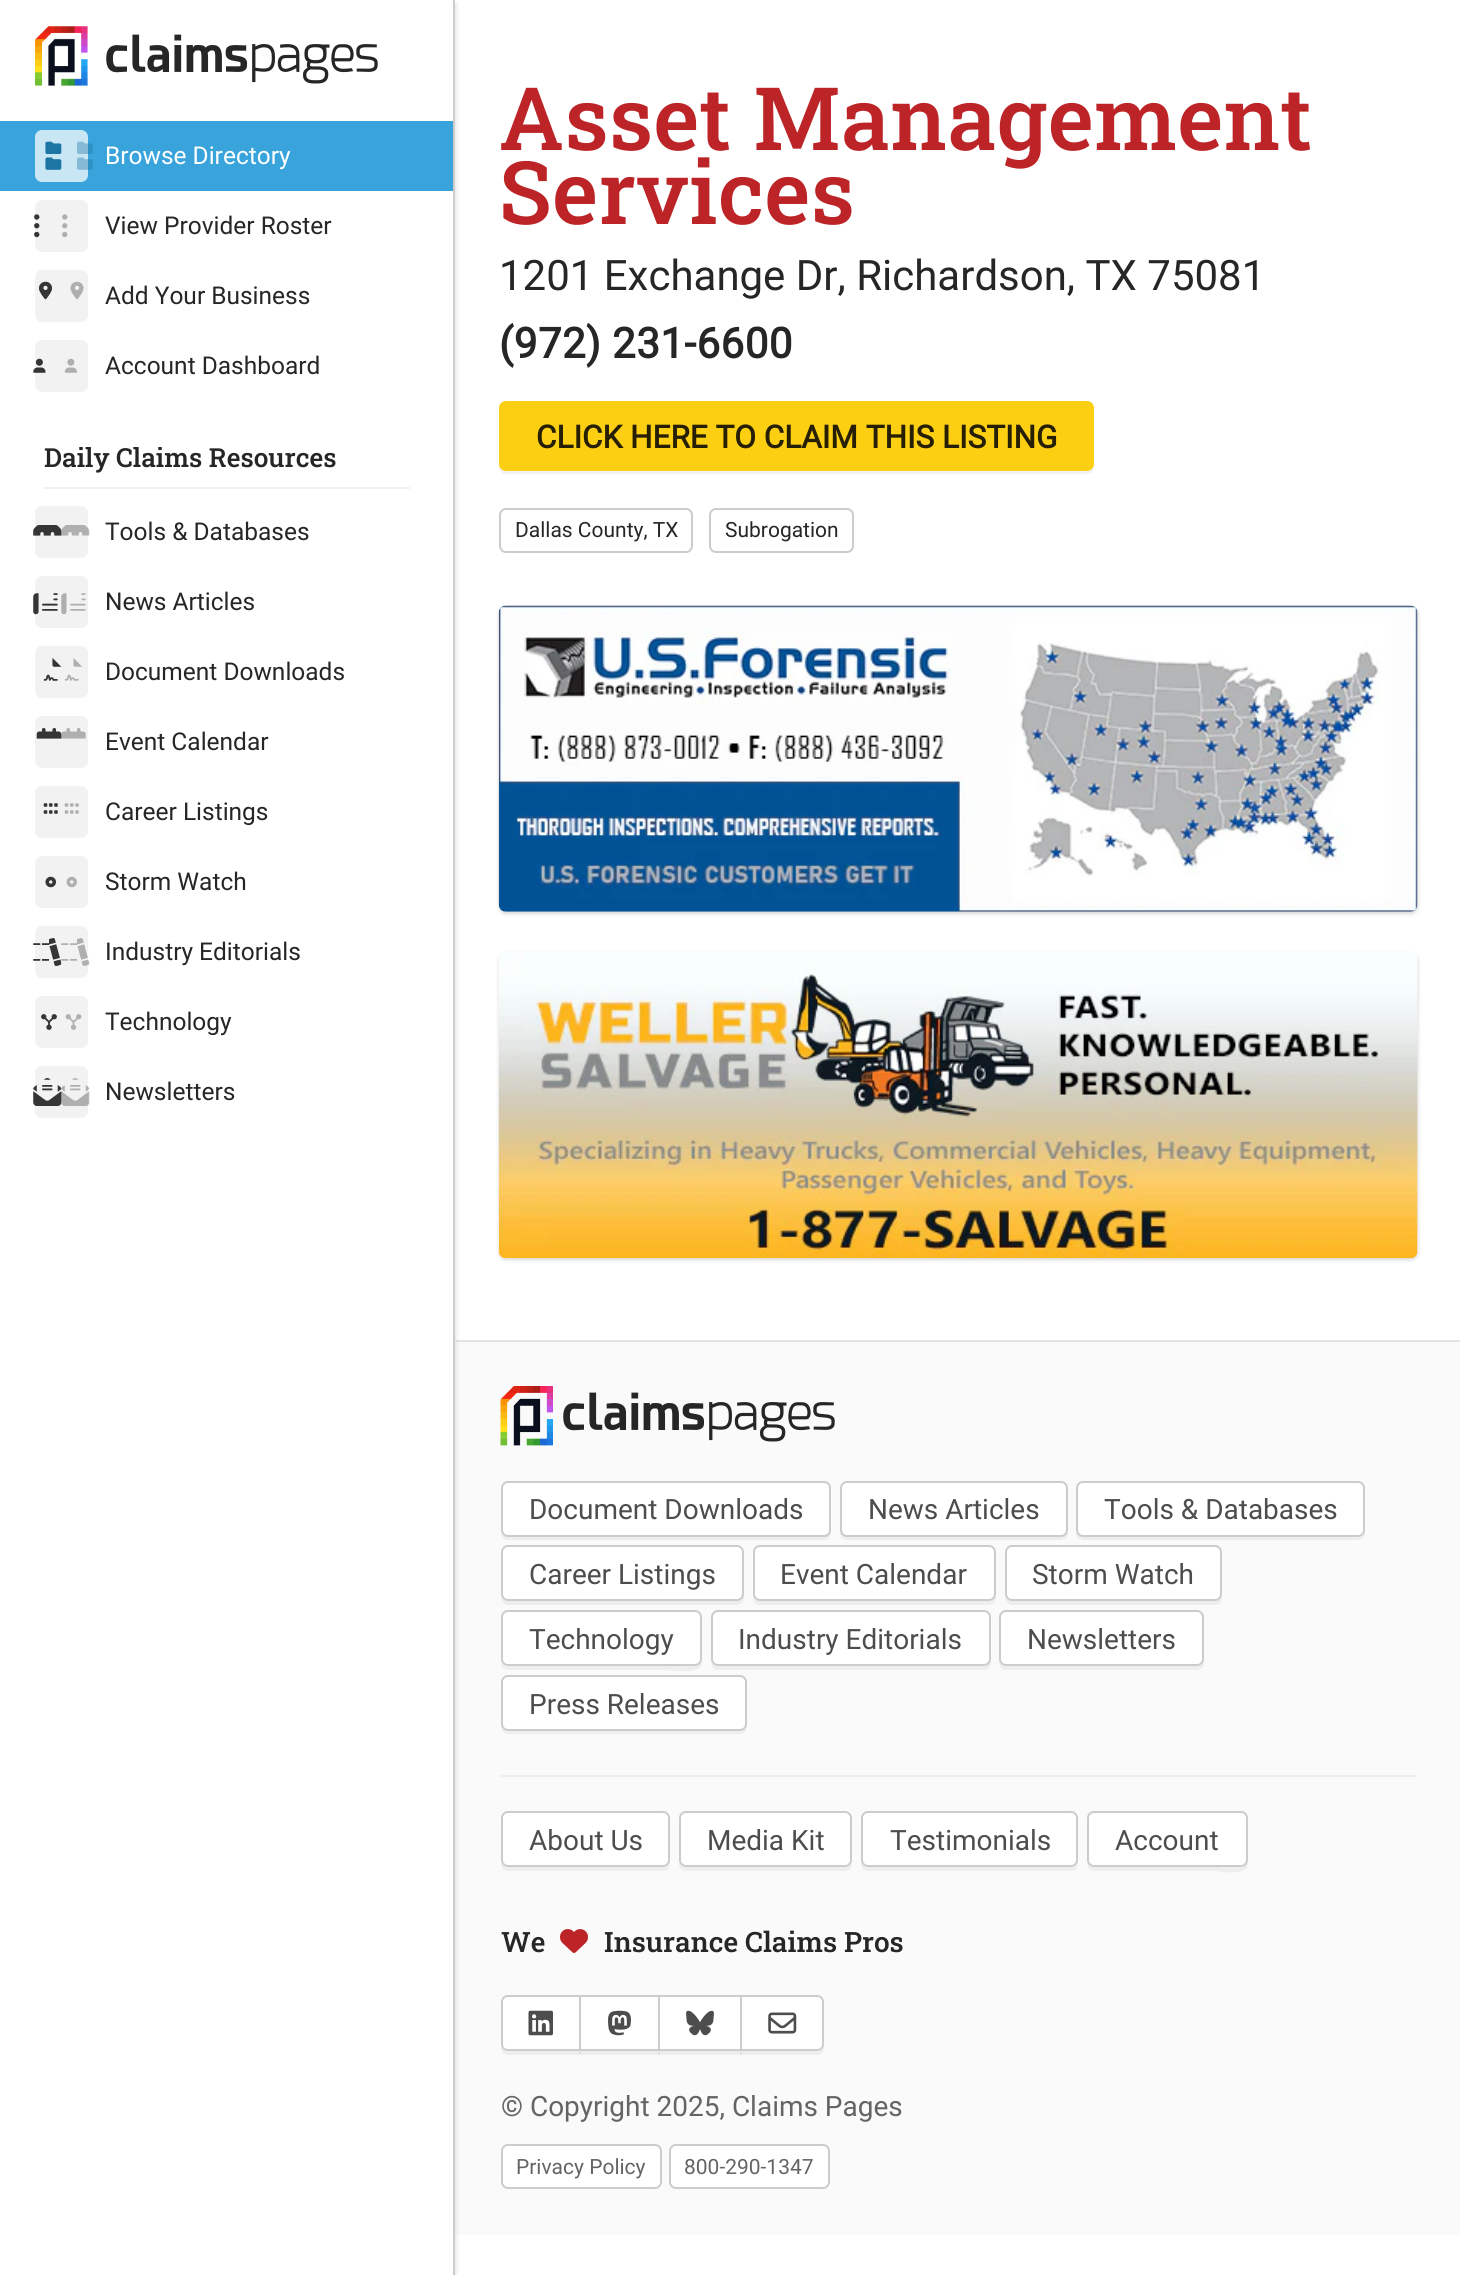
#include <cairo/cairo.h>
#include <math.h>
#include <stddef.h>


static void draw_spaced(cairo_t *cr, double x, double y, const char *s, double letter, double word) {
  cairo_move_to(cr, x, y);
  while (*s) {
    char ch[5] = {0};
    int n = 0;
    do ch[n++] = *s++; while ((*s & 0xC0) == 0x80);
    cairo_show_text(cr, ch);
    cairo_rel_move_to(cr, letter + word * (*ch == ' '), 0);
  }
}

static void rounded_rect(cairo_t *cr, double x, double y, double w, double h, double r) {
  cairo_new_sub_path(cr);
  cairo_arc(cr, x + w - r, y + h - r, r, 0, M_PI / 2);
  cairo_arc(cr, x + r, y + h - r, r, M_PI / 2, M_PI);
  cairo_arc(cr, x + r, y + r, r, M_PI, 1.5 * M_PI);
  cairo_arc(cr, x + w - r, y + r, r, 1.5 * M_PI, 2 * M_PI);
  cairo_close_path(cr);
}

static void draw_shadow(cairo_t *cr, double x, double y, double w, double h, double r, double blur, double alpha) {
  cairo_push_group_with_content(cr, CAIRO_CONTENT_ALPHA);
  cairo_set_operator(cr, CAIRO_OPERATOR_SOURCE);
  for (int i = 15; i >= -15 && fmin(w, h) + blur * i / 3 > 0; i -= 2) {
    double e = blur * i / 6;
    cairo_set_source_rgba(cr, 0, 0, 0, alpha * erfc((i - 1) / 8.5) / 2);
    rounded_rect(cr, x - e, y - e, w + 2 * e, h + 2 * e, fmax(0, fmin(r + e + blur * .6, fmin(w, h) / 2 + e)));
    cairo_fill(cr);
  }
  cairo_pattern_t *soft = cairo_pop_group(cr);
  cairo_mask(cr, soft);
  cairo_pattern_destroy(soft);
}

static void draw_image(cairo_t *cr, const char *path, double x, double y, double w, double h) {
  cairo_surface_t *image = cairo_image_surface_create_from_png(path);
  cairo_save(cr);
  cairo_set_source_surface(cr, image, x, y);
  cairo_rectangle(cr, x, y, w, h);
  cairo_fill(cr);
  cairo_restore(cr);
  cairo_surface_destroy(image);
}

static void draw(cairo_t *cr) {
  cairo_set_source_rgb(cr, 1, 1, 1);
  cairo_paint(cr);
  cairo_set_source_rgb(cr, 250 / 255.0, 250 / 255.0, 250 / 255.0);
  cairo_rectangle(cr, 455, 1341, 1005, 894);
  cairo_fill(cr);
  cairo_set_source_rgba(cr, 0, 0, 0, 0.1);
  cairo_new_path(cr);
  cairo_move_to(cr, 455, 1340);
  cairo_line_to(cr, 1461, 1340);
  cairo_line_to(cr, 1460, 1342);
  cairo_line_to(cr, 457, 1342);
  cairo_close_path(cr);
  cairo_fill(cr);
  cairo_save(cr);
  cairo_rectangle(cr, 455, 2, 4, 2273);
  cairo_clip(cr);
  cairo_set_source_rgb(cr, 0, 0, 0);
  draw_shadow(cr, 0, 4, 455, 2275, 0, 3.5, 0.15);
  cairo_restore(cr);
  cairo_set_source_rgb(cr, 204 / 255.0, 204 / 255.0, 204 / 255.0);
  cairo_rectangle(cr, 453, 0, 2, 2275);
  cairo_fill(cr);
  draw_image(cr, "images/1.png", 35, 26, 53, 60);
  cairo_set_source_rgb(cr, 57 / 255.0, 164 / 255.0, 220 / 255.0);
  cairo_rectangle(cr, 0, 121, 453, 70);
  cairo_fill(cr);
  cairo_set_source_rgb(cr, 201 / 255.0, 230 / 255.0, 245 / 255.0);
  rounded_rect(cr, 35, 130, 53, 52, 7);
  cairo_fill(cr);
  draw_image(cr, "images/2.png", 45, 141, 17, 29);
  draw_image(cr, "images/3.png", 45, 141, 48, 29);
  cairo_set_source_rgb(cr, 242 / 255.0, 242 / 255.0, 242 / 255.0);
  rounded_rect(cr, 35, 200, 53, 52, 7);
  cairo_fill(cr);
  draw_image(cr, "images/4.png", 34, 214, 6, 24);
  draw_image(cr, "images/5.png", 34, 214, 34, 24);
  rounded_rect(cr, 35, 270, 53, 52, 7);
  cairo_fill(cr);
  draw_image(cr, "images/6.png", 39, 281, 13, 19);
  draw_image(cr, "images/7.png", 39, 281, 45, 19);
  rounded_rect(cr, 35, 340, 53, 52, 7);
  cairo_fill(cr);
  draw_image(cr, "images/8.png", 33, 358, 13, 15);
  draw_image(cr, "images/9.png", 33, 358, 44, 15);
  cairo_rectangle(cr, 44, 487, 366, 2);
  cairo_fill(cr);
  rounded_rect(cr, 35, 506, 53, 52, 7);
  cairo_fill(cr);
  draw_image(cr, "images/10.png", 33, 525, 29, 11);
  draw_image(cr, "images/11.png", 33, 525, 57, 11);
  rounded_rect(cr, 35, 576, 53, 52, 7);
  cairo_fill(cr);
  draw_image(cr, "images/12.png", 33, 593, 25, 22);
  draw_image(cr, "images/13.png", 33, 593, 53, 22);
  rounded_rect(cr, 35, 646, 53, 52, 7);
  cairo_fill(cr);
  draw_image(cr, "images/14.png", 43, 658, 18, 23);
  draw_image(cr, "images/15.png", 43, 658, 39, 23);
  rounded_rect(cr, 35, 716, 53, 52, 7);
  cairo_fill(cr);
  draw_image(cr, "images/16.png", 36, 728, 26, 11);
  draw_image(cr, "images/17.png", 36, 728, 50, 11);
  rounded_rect(cr, 35, 786, 53, 52, 7);
  cairo_fill(cr);
  draw_image(cr, "images/18.png", 43, 803, 15, 11);
  draw_image(cr, "images/19.png", 43, 803, 36, 11);
  rounded_rect(cr, 35, 856, 53, 52, 7);
  cairo_fill(cr);
  draw_image(cr, "images/20.png", 45, 876, 11, 12);
  draw_image(cr, "images/21.png", 45, 876, 32, 12);
  rounded_rect(cr, 35, 926, 53, 52, 7);
  cairo_fill(cr);
  draw_image(cr, "images/22.png", 33, 938, 29, 28);
  draw_image(cr, "images/23.png", 33, 938, 57, 28);
  rounded_rect(cr, 35, 996, 53, 52, 7);
  cairo_fill(cr);
  draw_image(cr, "images/24.png", 41, 1014, 16, 16);
  draw_image(cr, "images/25.png", 41, 1014, 41, 16);
  rounded_rect(cr, 35, 1066, 53, 52, 7);
  cairo_fill(cr);
  draw_image(cr, "images/26.png", 33, 1078, 29, 28);
  draw_image(cr, "images/27.png", 33, 1078, 57, 28);
  cairo_new_path(cr);
  cairo_move_to(cr, 499, 466);
  cairo_line_to(cr, 499, 467);
  cairo_curve_to(cr, 499, 471, 502, 474, 506, 474);
  cairo_line_to(cr, 1087, 474);
  cairo_curve_to(cr, 1091, 474, 1094, 471, 1094, 467);
  cairo_line_to(cr, 1094, 409);
  cairo_line_to(cr, 1094, 464);
  cairo_curve_to(cr, 1094, 468, 1091, 471, 1087, 471);
  cairo_line_to(cr, 506, 471);
  cairo_curve_to(cr, 503, 471, 500, 469, 499, 466);
  cairo_close_path(cr);
  cairo_fill(cr);
  cairo_set_source_rgb(cr, 252 / 255.0, 207 / 255.0, 18 / 255.0);
  rounded_rect(cr, 499, 401, 595, 70, 7);
  cairo_fill(cr);
  rounded_rect(cr, 500, 509, 192, 43, 6);
  cairo_set_source_rgb(cr, 204 / 255.0, 204 / 255.0, 204 / 255.0);
  cairo_stroke(cr);
  rounded_rect(cr, 710, 509, 143, 43, 6);
  cairo_stroke(cr);
  cairo_set_source_rgb(cr, 0, 0, 0);
  draw_shadow(cr, 499, 607, 919, 307, 7, 2, 0.15);
  draw_image(cr, "images/28.png", 498, 605, 920, 307);
  draw_shadow(cr, 499, 954, 919, 306, 7, 2, 0.15);
  draw_image(cr, "images/29.png", 498, 952, 920, 307);
  draw_image(cr, "images/30.png", 500, 1386, 53, 60);
  cairo_set_source_rgb(cr, 238 / 255.0, 238 / 255.0, 238 / 255.0);
  cairo_new_path(cr);
  cairo_move_to(cr, 501, 1532);
  cairo_line_to(cr, 501, 1533);
  cairo_curve_to(cr, 501, 1537, 504, 1540, 508, 1540);
  cairo_line_to(cr, 824, 1540);
  cairo_curve_to(cr, 828, 1540, 831, 1537, 831, 1533);
  cairo_line_to(cr, 831, 1531);
  cairo_curve_to(cr, 830, 1534, 827, 1536, 824, 1536);
  cairo_line_to(cr, 508, 1536);
  cairo_curve_to(cr, 505, 1536, 502, 1535, 501, 1532);
  cairo_close_path(cr);
  cairo_fill(cr);
  cairo_set_source_rgb(cr, 1, 1, 1);
  rounded_rect(cr, 501, 1481, 330, 56, 7);
  cairo_fill(cr);
  rounded_rect(cr, 502, 1482, 328, 54, 6);
  cairo_set_source_rgba(cr, 0, 0, 0, 0.2);
  cairo_stroke(cr);
  cairo_set_source_rgb(cr, 238 / 255.0, 238 / 255.0, 238 / 255.0);
  cairo_new_path(cr);
  cairo_move_to(cr, 840, 1530);
  cairo_line_to(cr, 840, 1533);
  cairo_curve_to(cr, 840, 1537, 843, 1540, 847, 1540);
  cairo_line_to(cr, 1061, 1540);
  cairo_curve_to(cr, 1065, 1540, 1068, 1537, 1068, 1533);
  cairo_line_to(cr, 1068, 1491);
  cairo_line_to(cr, 1068, 1488);
  cairo_line_to(cr, 1068, 1530);
  cairo_curve_to(cr, 1068, 1533, 1064, 1536, 1060, 1536);
  cairo_line_to(cr, 847, 1536);
  cairo_curve_to(cr, 843, 1536, 840, 1533, 840, 1530);
  cairo_close_path(cr);
  cairo_fill(cr);
  cairo_set_source_rgb(cr, 1, 1, 1);
  rounded_rect(cr, 840, 1481, 228, 56, 7);
  cairo_fill(cr);
  rounded_rect(cr, 841, 1482, 226, 54, 6);
  cairo_set_source_rgba(cr, 0, 0, 0, 0.2);
  cairo_stroke(cr);
  cairo_set_source_rgb(cr, 238 / 255.0, 238 / 255.0, 238 / 255.0);
  cairo_new_path(cr);
  cairo_move_to(cr, 1076, 1489);
  cairo_line_to(cr, 1076, 1533);
  cairo_curve_to(cr, 1076, 1537, 1079, 1540, 1083, 1540);
  cairo_line_to(cr, 1358, 1540);
  cairo_curve_to(cr, 1362, 1540, 1365, 1537, 1365, 1533);
  cairo_line_to(cr, 1365, 1530);
  cairo_curve_to(cr, 1365, 1533, 1362, 1536, 1358, 1536);
  cairo_line_to(cr, 1083, 1536);
  cairo_curve_to(cr, 1079, 1536, 1076, 1533, 1076, 1530);
  cairo_close_path(cr);
  cairo_fill(cr);
  cairo_set_source_rgb(cr, 1, 1, 1);
  rounded_rect(cr, 1076, 1481, 289, 56, 7);
  cairo_fill(cr);
  rounded_rect(cr, 1077, 1482, 287, 54, 6);
  cairo_set_source_rgba(cr, 0, 0, 0, 0.2);
  cairo_stroke(cr);
  cairo_set_source_rgb(cr, 238 / 255.0, 238 / 255.0, 238 / 255.0);
  cairo_new_path(cr);
  cairo_move_to(cr, 501, 1597);
  cairo_line_to(cr, 501, 1598);
  cairo_curve_to(cr, 501, 1602, 504, 1605, 508, 1605);
  cairo_line_to(cr, 737, 1605);
  cairo_curve_to(cr, 741, 1605, 744, 1602, 744, 1598);
  cairo_line_to(cr, 744, 1554);
  cairo_line_to(cr, 744, 1594);
  cairo_curve_to(cr, 744, 1598, 741, 1601, 737, 1601);
  cairo_line_to(cr, 508, 1601);
  cairo_curve_to(cr, 505, 1601, 502, 1599, 501, 1597);
  cairo_close_path(cr);
  cairo_fill(cr);
  cairo_set_source_rgb(cr, 1, 1, 1);
  rounded_rect(cr, 501, 1545, 243, 56, 7);
  cairo_fill(cr);
  rounded_rect(cr, 502, 1546, 241, 54, 6);
  cairo_set_source_rgba(cr, 0, 0, 0, 0.2);
  cairo_stroke(cr);
  cairo_set_source_rgb(cr, 238 / 255.0, 238 / 255.0, 238 / 255.0);
  cairo_new_path(cr);
  cairo_move_to(cr, 753, 1597);
  cairo_line_to(cr, 753, 1598);
  cairo_curve_to(cr, 753, 1602, 756, 1605, 760, 1605);
  cairo_line_to(cr, 989, 1605);
  cairo_curve_to(cr, 993, 1605, 996, 1602, 996, 1598);
  cairo_line_to(cr, 996, 1554);
  cairo_line_to(cr, 996, 1594);
  cairo_curve_to(cr, 996, 1598, 993, 1601, 989, 1601);
  cairo_line_to(cr, 760, 1601);
  cairo_curve_to(cr, 757, 1601, 754, 1599, 753, 1597);
  cairo_close_path(cr);
  cairo_fill(cr);
  cairo_set_source_rgb(cr, 1, 1, 1);
  rounded_rect(cr, 753, 1545, 243, 56, 7);
  cairo_fill(cr);
  rounded_rect(cr, 754, 1546, 241, 54, 6);
  cairo_set_source_rgba(cr, 0, 0, 0, 0.2);
  cairo_stroke(cr);
  cairo_set_source_rgb(cr, 238 / 255.0, 238 / 255.0, 238 / 255.0);
  cairo_new_path(cr);
  cairo_move_to(cr, 1005, 1597);
  cairo_line_to(cr, 1005, 1598);
  cairo_curve_to(cr, 1005, 1602, 1008, 1605, 1012, 1605);
  cairo_line_to(cr, 1215, 1605);
  cairo_curve_to(cr, 1219, 1605, 1222, 1602, 1222, 1598);
  cairo_line_to(cr, 1222, 1556);
  cairo_line_to(cr, 1222, 1553);
  cairo_line_to(cr, 1222, 1594);
  cairo_curve_to(cr, 1222, 1598, 1218, 1601, 1214, 1601);
  cairo_line_to(cr, 1012, 1601);
  cairo_curve_to(cr, 1009, 1601, 1006, 1599, 1005, 1597);
  cairo_close_path(cr);
  cairo_fill(cr);
  cairo_set_source_rgb(cr, 1, 1, 1);
  rounded_rect(cr, 1005, 1545, 217, 56, 7);
  cairo_fill(cr);
  rounded_rect(cr, 1006, 1546, 215, 54, 6);
  cairo_set_source_rgba(cr, 0, 0, 0, 0.2);
  cairo_stroke(cr);
  cairo_set_source_rgb(cr, 238 / 255.0, 238 / 255.0, 238 / 255.0);
  cairo_new_path(cr);
  cairo_move_to(cr, 501, 1662);
  cairo_curve_to(cr, 501, 1666, 503, 1670, 508, 1670);
  cairo_line_to(cr, 664, 1670);
  cairo_curve_to(cr, 673, 1670, 700, 1675, 702, 1664);
  cairo_line_to(cr, 702, 1619);
  cairo_line_to(cr, 702, 1659);
  cairo_curve_to(cr, 702, 1663, 699, 1666, 695, 1666);
  cairo_line_to(cr, 508, 1666);
  cairo_curve_to(cr, 505, 1666, 502, 1664, 501, 1662);
  cairo_close_path(cr);
  cairo_fill(cr);
  cairo_set_source_rgb(cr, 1, 1, 1);
  rounded_rect(cr, 501, 1610, 201, 56, 7);
  cairo_fill(cr);
  rounded_rect(cr, 502, 1611, 199, 54, 6);
  cairo_set_source_rgba(cr, 0, 0, 0, 0.2);
  cairo_stroke(cr);
  cairo_set_source_rgb(cr, 238 / 255.0, 238 / 255.0, 238 / 255.0);
  cairo_new_path(cr);
  cairo_move_to(cr, 711, 1662);
  cairo_line_to(cr, 711, 1663);
  cairo_curve_to(cr, 711, 1667, 714, 1670, 718, 1670);
  cairo_line_to(cr, 984, 1670);
  cairo_curve_to(cr, 988, 1670, 991, 1667, 991, 1663);
  cairo_line_to(cr, 991, 1621);
  cairo_line_to(cr, 990, 1618);
  cairo_line_to(cr, 990, 1659);
  cairo_curve_to(cr, 990, 1663, 987, 1666, 984, 1666);
  cairo_line_to(cr, 718, 1666);
  cairo_curve_to(cr, 715, 1666, 712, 1664, 711, 1662);
  cairo_close_path(cr);
  cairo_fill(cr);
  cairo_set_source_rgb(cr, 1, 1, 1);
  rounded_rect(cr, 711, 1610, 280, 56, 7);
  cairo_fill(cr);
  rounded_rect(cr, 712, 1611, 278, 54, 6);
  cairo_set_source_rgba(cr, 0, 0, 0, 0.2);
  cairo_stroke(cr);
  cairo_set_source_rgb(cr, 238 / 255.0, 238 / 255.0, 238 / 255.0);
  cairo_new_path(cr);
  cairo_move_to(cr, 999, 1619);
  cairo_line_to(cr, 999, 1663);
  cairo_curve_to(cr, 999, 1667, 1002, 1670, 1006, 1670);
  cairo_line_to(cr, 1197, 1670);
  cairo_curve_to(cr, 1201, 1670, 1204, 1667, 1204, 1663);
  cairo_line_to(cr, 1204, 1659);
  cairo_curve_to(cr, 1204, 1663, 1201, 1666, 1197, 1666);
  cairo_line_to(cr, 1006, 1666);
  cairo_curve_to(cr, 1002, 1666, 999, 1663, 999, 1659);
  cairo_close_path(cr);
  cairo_fill(cr);
  cairo_set_source_rgb(cr, 1, 1, 1);
  rounded_rect(cr, 999, 1610, 205, 56, 7);
  cairo_fill(cr);
  rounded_rect(cr, 1000, 1611, 203, 54, 6);
  cairo_set_source_rgba(cr, 0, 0, 0, 0.2);
  cairo_stroke(cr);
  cairo_set_source_rgb(cr, 238 / 255.0, 238 / 255.0, 238 / 255.0);
  cairo_new_path(cr);
  cairo_move_to(cr, 501, 1726);
  cairo_line_to(cr, 501, 1727);
  cairo_curve_to(cr, 501, 1731, 504, 1734, 508, 1734);
  cairo_line_to(cr, 740, 1734);
  cairo_curve_to(cr, 744, 1734, 747, 1731, 747, 1727);
  cairo_line_to(cr, 747, 1726);
  cairo_curve_to(cr, 746, 1729, 743, 1731, 740, 1731);
  cairo_line_to(cr, 508, 1731);
  cairo_curve_to(cr, 505, 1731, 502, 1729, 501, 1726);
  cairo_close_path(cr);
  cairo_fill(cr);
  cairo_set_source_rgb(cr, 1, 1, 1);
  rounded_rect(cr, 501, 1675, 246, 56, 7);
  cairo_fill(cr);
  rounded_rect(cr, 502, 1676, 244, 54, 6);
  cairo_set_source_rgba(cr, 0, 0, 0, 0.2);
  cairo_stroke(cr);
  cairo_set_source_rgb(cr, 238 / 255.0, 238 / 255.0, 238 / 255.0);
  cairo_rectangle(cr, 501, 1775, 915, 2);
  cairo_fill(cr);
  cairo_new_path(cr);
  cairo_move_to(cr, 501, 1863);
  cairo_line_to(cr, 501, 1864);
  cairo_curve_to(cr, 501, 1868, 504, 1871, 508, 1871);
  cairo_line_to(cr, 663, 1871);
  cairo_curve_to(cr, 667, 1871, 670, 1868, 670, 1864);
  cairo_line_to(cr, 670, 1862);
  cairo_curve_to(cr, 669, 1865, 666, 1867, 663, 1867);
  cairo_line_to(cr, 508, 1867);
  cairo_curve_to(cr, 505, 1867, 502, 1865, 501, 1863);
  cairo_close_path(cr);
  cairo_fill(cr);
  cairo_set_source_rgb(cr, 1, 1, 1);
  rounded_rect(cr, 501, 1811, 169, 56, 7);
  cairo_fill(cr);
  rounded_rect(cr, 502, 1812, 167, 54, 6);
  cairo_set_source_rgba(cr, 0, 0, 0, 0.2);
  cairo_stroke(cr);
  cairo_set_source_rgb(cr, 238 / 255.0, 238 / 255.0, 238 / 255.0);
  cairo_new_path(cr);
  cairo_move_to(cr, 679, 1860);
  cairo_line_to(cr, 679, 1864);
  cairo_curve_to(cr, 679, 1868, 682, 1871, 686, 1871);
  cairo_line_to(cr, 845, 1871);
  cairo_curve_to(cr, 849, 1871, 852, 1868, 852, 1864);
  cairo_line_to(cr, 852, 1862);
  cairo_curve_to(cr, 851, 1865, 848, 1867, 845, 1867);
  cairo_line_to(cr, 686, 1867);
  cairo_curve_to(cr, 682, 1867, 679, 1864, 679, 1860);
  cairo_close_path(cr);
  cairo_fill(cr);
  cairo_set_source_rgb(cr, 1, 1, 1);
  rounded_rect(cr, 679, 1811, 173, 56, 7);
  cairo_fill(cr);
  rounded_rect(cr, 680, 1812, 171, 54, 6);
  cairo_set_source_rgba(cr, 0, 0, 0, 0.2);
  cairo_stroke(cr);
  cairo_set_source_rgb(cr, 238 / 255.0, 238 / 255.0, 238 / 255.0);
  cairo_new_path(cr);
  cairo_move_to(cr, 861, 1860);
  cairo_line_to(cr, 861, 1864);
  cairo_curve_to(cr, 861, 1868, 864, 1871, 868, 1871);
  cairo_line_to(cr, 1071, 1871);
  cairo_curve_to(cr, 1075, 1871, 1078, 1868, 1078, 1864);
  cairo_line_to(cr, 1078, 1860);
  cairo_curve_to(cr, 1078, 1864, 1075, 1867, 1071, 1867);
  cairo_line_to(cr, 868, 1867);
  cairo_curve_to(cr, 864, 1867, 861, 1864, 861, 1860);
  cairo_close_path(cr);
  cairo_fill(cr);
  cairo_set_source_rgb(cr, 1, 1, 1);
  rounded_rect(cr, 861, 1811, 217, 56, 7);
  cairo_fill(cr);
  rounded_rect(cr, 862, 1812, 215, 54, 6);
  cairo_set_source_rgba(cr, 0, 0, 0, 0.2);
  cairo_stroke(cr);
  cairo_set_source_rgb(cr, 238 / 255.0, 238 / 255.0, 238 / 255.0);
  cairo_new_path(cr);
  cairo_move_to(cr, 1087, 1862);
  cairo_curve_to(cr, 1087, 1867, 1089, 1871, 1094, 1871);
  cairo_line_to(cr, 1216, 1871);
  cairo_curve_to(cr, 1217, 1871, 1246, 1877, 1248, 1865);
  cairo_line_to(cr, 1248, 1820);
  cairo_line_to(cr, 1248, 1860);
  cairo_curve_to(cr, 1248, 1864, 1245, 1867, 1241, 1867);
  cairo_line_to(cr, 1094, 1867);
  cairo_curve_to(cr, 1091, 1867, 1088, 1865, 1087, 1862);
  cairo_close_path(cr);
  cairo_fill(cr);
  cairo_set_source_rgb(cr, 1, 1, 1);
  rounded_rect(cr, 1087, 1811, 161, 56, 7);
  cairo_fill(cr);
  rounded_rect(cr, 1088, 1812, 159, 54, 6);
  cairo_set_source_rgba(cr, 0, 0, 0, 0.2);
  cairo_stroke(cr);
  draw_image(cr, "images/31.png", 560, 1929, 28, 24);
  cairo_set_source_rgb(cr, 238 / 255.0, 238 / 255.0, 238 / 255.0);
  cairo_new_path(cr);
  cairo_move_to(cr, 501, 2047);
  cairo_line_to(cr, 501, 2048);
  cairo_curve_to(cr, 501, 2052, 504, 2055, 508, 2055);
  cairo_line_to(cr, 581, 2055);
  cairo_line_to(cr, 581, 2051);
  cairo_line_to(cr, 508, 2051);
  cairo_curve_to(cr, 505, 2051, 502, 2049, 501, 2047);
  cairo_close_path(cr);
  cairo_fill(cr);
  cairo_set_source_rgb(cr, 1, 1, 1);
  cairo_new_path(cr);
  cairo_move_to(cr, 508, 1995);
  cairo_line_to(cr, 581, 1995);
  cairo_line_to(cr, 581, 2051);
  cairo_line_to(cr, 508, 2051);
  cairo_curve_to(cr, 504, 2051, 501, 2048, 501, 2044);
  cairo_line_to(cr, 501, 2002);
  cairo_curve_to(cr, 501, 1998, 504, 1995, 508, 1995);
  cairo_close_path(cr);
  cairo_fill(cr);
  cairo_new_path(cr);
  cairo_move_to(cr, 508, 1996);
  cairo_line_to(cr, 580, 1996);
  cairo_line_to(cr, 580, 2050);
  cairo_line_to(cr, 508, 2050);
  cairo_curve_to(cr, 504.5, 2050, 502, 2047.5, 502, 2044);
  cairo_line_to(cr, 502, 2002);
  cairo_curve_to(cr, 502, 1998.5, 504.5, 1996, 508, 1996);
  cairo_close_path(cr);
  cairo_set_source_rgba(cr, 0, 0, 0, 0.2);
  cairo_stroke(cr);
  draw_image(cr, "images/32.png", 528, 2010, 25, 26);
  cairo_set_source_rgba(cr, 0, 0, 0, 0.05);
  cairo_new_path(cr);
  cairo_move_to(cr, 579, 1999);
  cairo_line_to(cr, 579, 2055);
  cairo_line_to(cr, 660, 2055);
  cairo_line_to(cr, 660, 1999);
  cairo_line_to(cr, 660, 2051);
  cairo_line_to(cr, 579, 2051);
  cairo_close_path(cr);
  cairo_fill(cr);
  cairo_set_source_rgb(cr, 1, 1, 1);
  cairo_rectangle(cr, 580, 1996, 79, 54);
  cairo_fill_preserve(cr);
  cairo_set_source_rgb(cr, 204 / 255.0, 204 / 255.0, 204 / 255.0);
  cairo_stroke(cr);
  draw_image(cr, "images/33.png", 608, 2010, 23, 26);
  cairo_set_source_rgba(cr, 0, 0, 0, 0.05);
  cairo_rectangle(cr, 658, 2051, 84, 4);
  cairo_fill(cr);
  cairo_set_source_rgb(cr, 1, 1, 1);
  cairo_rectangle(cr, 659, 1996, 82, 54);
  cairo_fill_preserve(cr);
  cairo_set_source_rgb(cr, 204 / 255.0, 204 / 255.0, 204 / 255.0);
  cairo_stroke(cr);
  draw_image(cr, "images/34.png", 686, 2010, 28, 26);
  cairo_set_source_rgba(cr, 0, 0, 0, 0.05);
  cairo_new_path(cr);
  cairo_move_to(cr, 740, 1999);
  cairo_line_to(cr, 740, 2055);
  cairo_line_to(cr, 817, 2055);
  cairo_curve_to(cr, 821, 2055, 824, 2052, 824, 2048);
  cairo_line_to(cr, 824, 2046);
  cairo_curve_to(cr, 823, 2049, 820, 2051, 817, 2051);
  cairo_line_to(cr, 740, 2051);
  cairo_close_path(cr);
  cairo_fill(cr);
  cairo_set_source_rgb(cr, 1, 1, 1);
  cairo_new_path(cr);
  cairo_move_to(cr, 740, 1995);
  cairo_line_to(cr, 817, 1995);
  cairo_curve_to(cr, 821, 1995, 824, 1998, 824, 2002);
  cairo_line_to(cr, 824, 2044);
  cairo_curve_to(cr, 824, 2048, 821, 2051, 817, 2051);
  cairo_line_to(cr, 740, 2051);
  cairo_close_path(cr);
  cairo_fill(cr);
  cairo_new_path(cr);
  cairo_move_to(cr, 741, 1996);
  cairo_line_to(cr, 817, 1996);
  cairo_curve_to(cr, 820.5, 1996, 823, 1998.5, 823, 2002);
  cairo_line_to(cr, 823, 2044);
  cairo_curve_to(cr, 823, 2047.5, 820.5, 2050, 817, 2050);
  cairo_line_to(cr, 741, 2050);
  cairo_close_path(cr);
  cairo_set_source_rgba(cr, 0, 0, 0, 0.2);
  cairo_stroke(cr);
  draw_image(cr, "images/35.png", 768, 2012, 29, 22);
  cairo_set_source_rgb(cr, 1, 1, 1);
  rounded_rect(cr, 502, 2145, 159, 43, 6);
  cairo_fill_preserve(cr);
  cairo_set_source_rgb(cr, 204 / 255.0, 204 / 255.0, 204 / 255.0);
  cairo_stroke(cr);
  cairo_set_source_rgb(cr, 1, 1, 1);
  rounded_rect(cr, 670, 2145, 159, 43, 6);
  cairo_fill_preserve(cr);
  cairo_set_source_rgb(cr, 204 / 255.0, 204 / 255.0, 204 / 255.0);
  cairo_stroke(cr);
  cairo_select_font_face(cr, "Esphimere", CAIRO_FONT_SLANT_NORMAL, CAIRO_FONT_WEIGHT_BOLD);
  cairo_set_font_size(cr, 49);
  cairo_set_source_rgb(cr, 38 / 255.0, 38 / 255.0, 38 / 255.0);
  cairo_move_to(cr, 105, 72);
  cairo_show_text(cr, "claims");
  cairo_select_font_face(cr, "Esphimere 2", CAIRO_FONT_SLANT_NORMAL, CAIRO_FONT_WEIGHT_BOLD);
  cairo_move_to(cr, 249, 72);
  cairo_show_text(cr, "pages");
  cairo_select_font_face(cr, "Roboto", CAIRO_FONT_SLANT_NORMAL, CAIRO_FONT_WEIGHT_NORMAL);
  cairo_set_font_size(cr, 24.5);
  cairo_set_source_rgb(cr, 1, 1, 1);
  cairo_move_to(cr, 105, 164);
  cairo_show_text(cr, "Browse Directory");
  cairo_set_source_rgb(cr, 38 / 255.0, 38 / 255.0, 38 / 255.0);
  cairo_move_to(cr, 105, 234);
  cairo_show_text(cr, "View Provider Roster");
  cairo_move_to(cr, 105, 304);
  cairo_show_text(cr, "Add Your Business");
  cairo_move_to(cr, 105, 374);
  cairo_show_text(cr, "Account Dashboard");
  cairo_select_font_face(cr, "Roboto Slab Medium", CAIRO_FONT_SLANT_NORMAL, CAIRO_FONT_WEIGHT_NORMAL);
  cairo_set_font_size(cr, 26.25);
  cairo_move_to(cr, 44, 467);
  cairo_show_text(cr, "Daily Claims Resources");
  cairo_select_font_face(cr, "Roboto", CAIRO_FONT_SLANT_NORMAL, CAIRO_FONT_WEIGHT_NORMAL);
  cairo_set_font_size(cr, 24.5);
  cairo_move_to(cr, 105, 540);
  cairo_show_text(cr, "Tools & Databases");
  cairo_move_to(cr, 105, 610);
  cairo_show_text(cr, "News Articles");
  cairo_move_to(cr, 105, 680);
  cairo_show_text(cr, "Document Downloads");
  cairo_move_to(cr, 105, 750);
  cairo_show_text(cr, "Event Calendar");
  cairo_move_to(cr, 105, 820);
  cairo_show_text(cr, "Career Listings");
  cairo_move_to(cr, 105, 890);
  cairo_show_text(cr, "Storm Watch");
  cairo_move_to(cr, 105, 960);
  cairo_show_text(cr, "Industry Editorials");
  cairo_move_to(cr, 105, 1030);
  cairo_show_text(cr, "Technology");
  cairo_move_to(cr, 105, 1100);
  cairo_show_text(cr, "Newsletters");
  cairo_select_font_face(cr, "Roboto Slab Medium", CAIRO_FONT_SLANT_NORMAL, CAIRO_FONT_WEIGHT_NORMAL);
  cairo_set_font_size(cr, 87.5);
  cairo_set_source_rgb(cr, 189 / 255.0, 36 / 255.0, 39 / 255.0);
  draw_spaced(cr, 499, 150, "Asset Management", 0.5, 0);
  draw_spaced(cr, 499, 224, "Services", 0.5, 0);
  cairo_select_font_face(cr, "Roboto", CAIRO_FONT_SLANT_NORMAL, CAIRO_FONT_WEIGHT_NORMAL);
  cairo_set_font_size(cr, 42);
  cairo_set_source_rgb(cr, 38 / 255.0, 38 / 255.0, 38 / 255.0);
  cairo_move_to(cr, 499, 290);
  cairo_show_text(cr, "1201 Exchange Dr, Richardson, TX 75081");
  cairo_select_font_face(cr, "Roboto", CAIRO_FONT_SLANT_NORMAL, CAIRO_FONT_WEIGHT_BOLD);
  draw_spaced(cr, 499, 358, "(972) 231-6600", 0.5, 0);
  cairo_set_font_size(cr, 31.5);
  cairo_set_source_rgb(cr, 38 / 255.0, 31 / 255.0, 3 / 255.0);
  cairo_move_to(cr, 536, 448);
  cairo_show_text(cr, "CLICK HERE TO CLAIM THIS LISTING");
  cairo_select_font_face(cr, "Roboto", CAIRO_FONT_SLANT_NORMAL, CAIRO_FONT_WEIGHT_NORMAL);
  cairo_set_font_size(cr, 21);
  cairo_set_source_rgb(cr, 38 / 255.0, 38 / 255.0, 38 / 255.0);
  cairo_move_to(cr, 515, 537);
  cairo_show_text(cr, "Dallas County, TX");
  cairo_move_to(cr, 725, 537);
  cairo_show_text(cr, "Subrogation");
  cairo_select_font_face(cr, "Esphimere", CAIRO_FONT_SLANT_NORMAL, CAIRO_FONT_WEIGHT_BOLD);
  cairo_set_font_size(cr, 49);
  cairo_move_to(cr, 562, 1430);
  cairo_show_text(cr, "claims");
  cairo_select_font_face(cr, "Esphimere 2", CAIRO_FONT_SLANT_NORMAL, CAIRO_FONT_WEIGHT_BOLD);
  cairo_move_to(cr, 706, 1430);
  cairo_show_text(cr, "pages");
  cairo_select_font_face(cr, "Roboto", CAIRO_FONT_SLANT_NORMAL, CAIRO_FONT_WEIGHT_NORMAL);
  cairo_set_font_size(cr, 28);
  cairo_set_source_rgb(cr, 77 / 255.0, 77 / 255.0, 77 / 255.0);
  cairo_move_to(cr, 529, 1519);
  cairo_show_text(cr, "Document Downloads");
  cairo_move_to(cr, 868, 1519);
  cairo_show_text(cr, "News Articles");
  cairo_move_to(cr, 1104, 1519);
  cairo_show_text(cr, "Tools & Databases");
  cairo_move_to(cr, 529, 1584);
  cairo_show_text(cr, "Career Listings");
  cairo_move_to(cr, 780, 1584);
  cairo_show_text(cr, "Event Calendar");
  cairo_move_to(cr, 1032, 1584);
  cairo_show_text(cr, "Storm Watch");
  cairo_move_to(cr, 529, 1649);
  cairo_show_text(cr, "Technology");
  cairo_move_to(cr, 738, 1649);
  cairo_show_text(cr, "Industry Editorials");
  cairo_move_to(cr, 1027, 1649);
  cairo_show_text(cr, "Newsletters");
  cairo_move_to(cr, 529, 1714);
  cairo_show_text(cr, "Press Releases");
  cairo_move_to(cr, 529, 1850);
  cairo_show_text(cr, "About Us");
  cairo_move_to(cr, 707, 1850);
  cairo_show_text(cr, "Media Kit");
  cairo_move_to(cr, 890, 1850);
  cairo_show_text(cr, "Testimonials");
  cairo_move_to(cr, 1115, 1850);
  cairo_show_text(cr, "Account");
  cairo_select_font_face(cr, "Roboto Slab Medium", CAIRO_FONT_SLANT_NORMAL, CAIRO_FONT_WEIGHT_NORMAL);
  cairo_set_source_rgb(cr, 38 / 255.0, 38 / 255.0, 38 / 255.0);
  cairo_move_to(cr, 501, 1952);
  cairo_show_text(cr, "We");
  cairo_move_to(cr, 604, 1952);
  cairo_show_text(cr, "Insurance Claims Pros");
  cairo_select_font_face(cr, "Roboto", CAIRO_FONT_SLANT_NORMAL, CAIRO_FONT_WEIGHT_NORMAL);
  cairo_set_source_rgb(cr, 100 / 255.0, 100 / 255.0, 100 / 255.0);
  cairo_move_to(cr, 501, 2116);
  cairo_show_text(cr, "© Copyright 2025, Claims Pages");
  cairo_set_font_size(cr, 21);
  cairo_move_to(cr, 516, 2174);
  cairo_show_text(cr, "Privacy Policy");
  cairo_move_to(cr, 684, 2174);
  cairo_show_text(cr, "800-290-1347");
}

int main(void) {
  cairo_surface_t *surface = cairo_image_surface_create(CAIRO_FORMAT_RGB24, 1460, 2275);
  cairo_t *cr = cairo_create(surface);
  cairo_font_options_t *options = cairo_font_options_create();
  cairo_font_options_set_hint_metrics(options, CAIRO_HINT_METRICS_OFF);
  cairo_font_options_set_hint_style(options, CAIRO_HINT_STYLE_NONE);
  cairo_set_font_options(cr, options);
  cairo_set_miter_limit(cr, 4);
  draw(cr);
  cairo_surface_write_to_png(surface, "out.png");
  cairo_font_options_destroy(options);
  cairo_destroy(cr);
  cairo_surface_destroy(surface);
  return 0;
}
